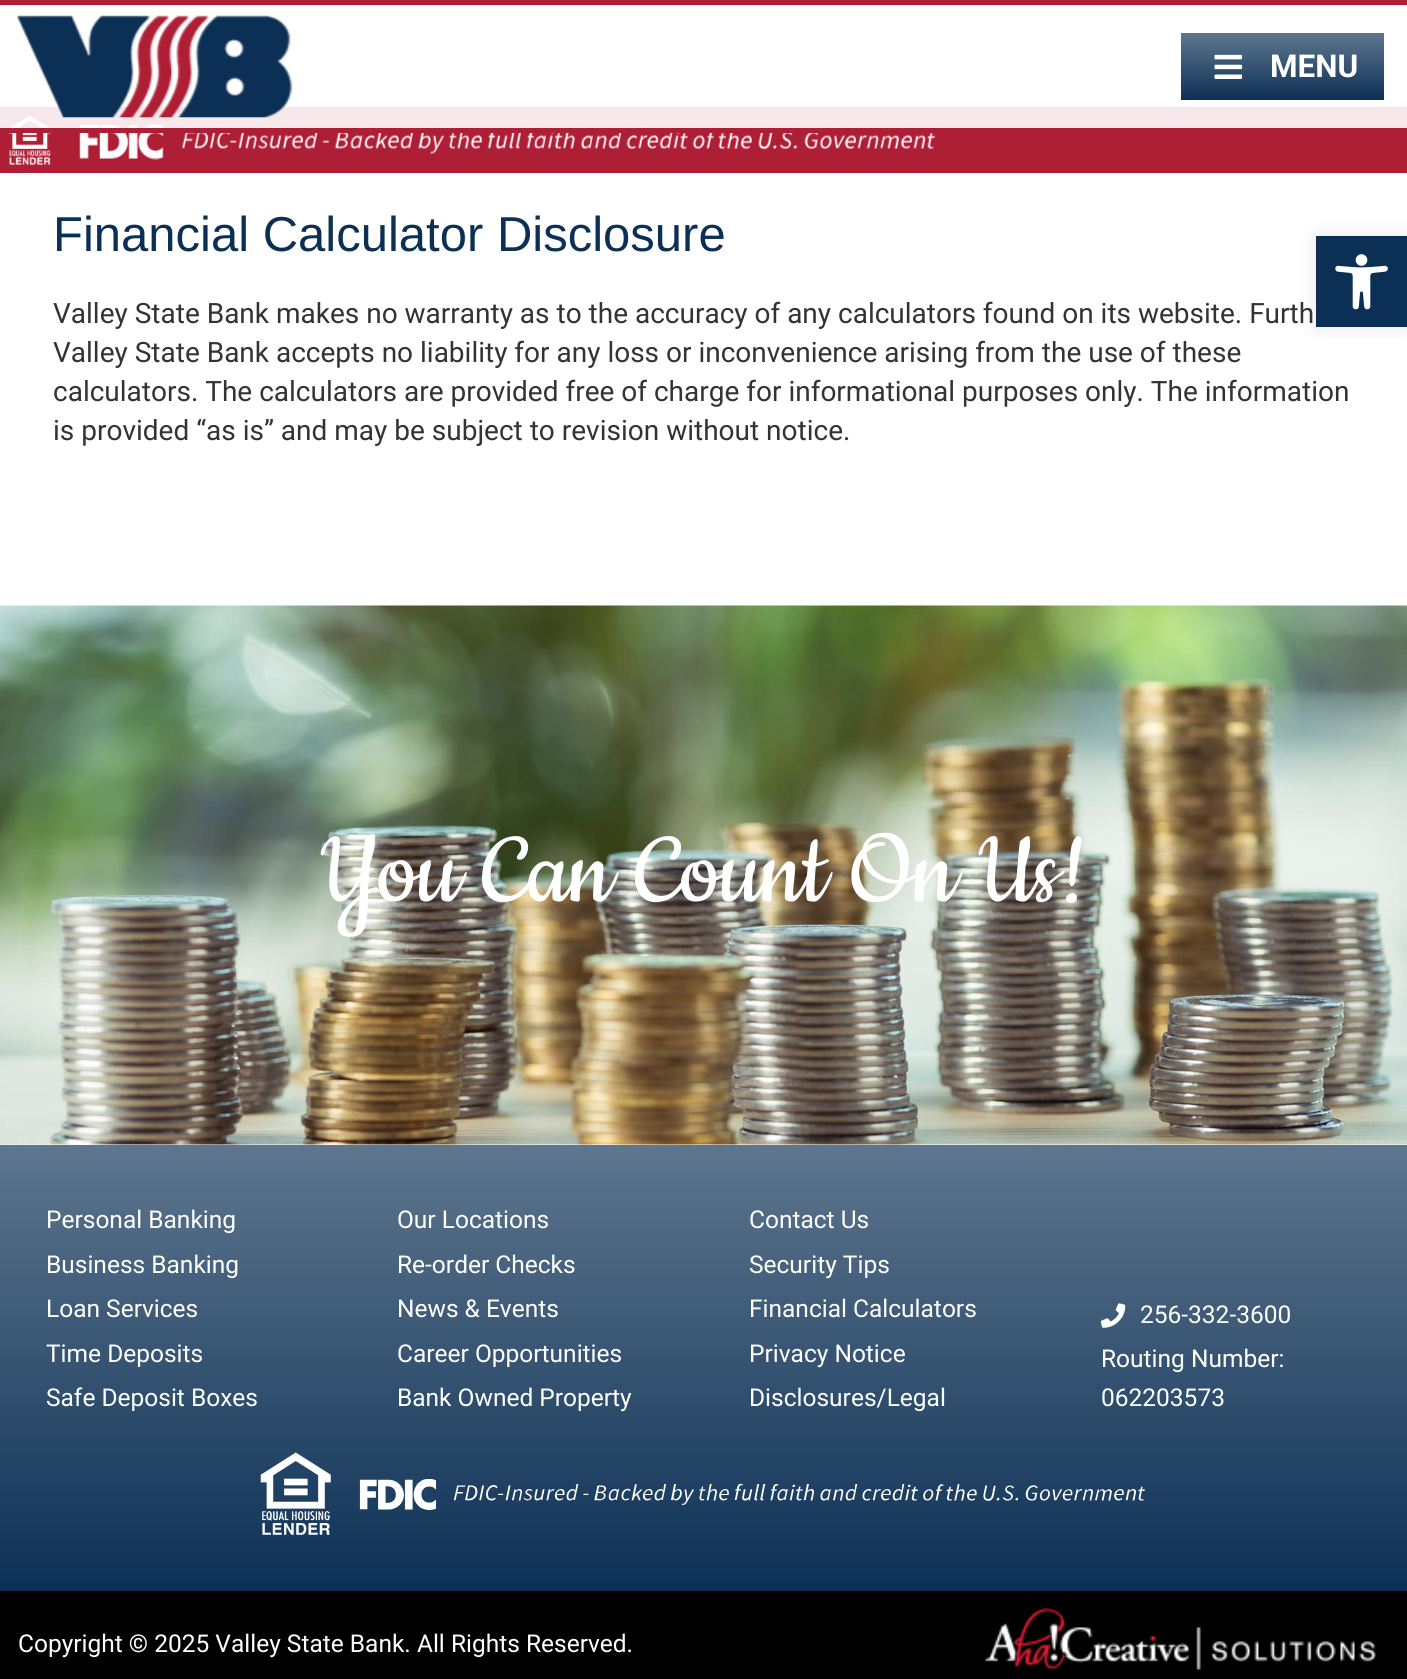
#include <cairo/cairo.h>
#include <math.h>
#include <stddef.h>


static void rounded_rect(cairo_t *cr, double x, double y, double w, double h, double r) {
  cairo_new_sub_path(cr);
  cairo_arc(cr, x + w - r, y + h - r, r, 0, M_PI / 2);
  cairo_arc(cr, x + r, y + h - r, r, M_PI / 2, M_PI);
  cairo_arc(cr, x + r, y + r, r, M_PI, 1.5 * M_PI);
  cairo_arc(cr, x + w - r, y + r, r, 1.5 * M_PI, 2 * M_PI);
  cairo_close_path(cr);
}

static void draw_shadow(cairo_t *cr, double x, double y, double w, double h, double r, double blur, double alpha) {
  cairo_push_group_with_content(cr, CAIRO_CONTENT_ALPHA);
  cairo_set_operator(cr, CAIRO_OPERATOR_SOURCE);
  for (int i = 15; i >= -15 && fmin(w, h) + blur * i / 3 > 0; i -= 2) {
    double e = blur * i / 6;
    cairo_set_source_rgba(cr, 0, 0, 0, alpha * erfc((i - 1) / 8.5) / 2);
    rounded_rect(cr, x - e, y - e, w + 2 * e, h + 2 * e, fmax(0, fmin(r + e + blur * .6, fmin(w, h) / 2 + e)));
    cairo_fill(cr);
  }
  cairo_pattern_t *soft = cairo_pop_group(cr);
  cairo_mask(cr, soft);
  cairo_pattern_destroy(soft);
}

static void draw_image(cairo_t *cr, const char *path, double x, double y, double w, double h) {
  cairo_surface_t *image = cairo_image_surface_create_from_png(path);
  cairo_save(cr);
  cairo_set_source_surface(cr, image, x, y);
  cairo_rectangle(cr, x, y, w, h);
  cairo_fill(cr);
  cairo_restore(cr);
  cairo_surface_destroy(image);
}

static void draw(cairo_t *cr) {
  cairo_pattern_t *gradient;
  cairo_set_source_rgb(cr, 1, 1, 1);
  cairo_paint(cr);
  cairo_set_source_rgb(cr, 174 / 255.0, 30 / 255.0, 53 / 255.0);
  cairo_rectangle(cr, 0, 107, 1407, 66);
  cairo_fill(cr);
  draw_image(cr, "images/3.png", 8, 115, 43, 50);
  draw_image(cr, "images/4.png", 79, 124, 856, 36);
  cairo_set_source_rgba(cr, 1, 1, 1, 0.9);
  cairo_rectangle(cr, 0, 107, 1407, 21);
  cairo_fill(cr);
  cairo_set_source_rgb(cr, 174 / 255.0, 30 / 255.0, 53 / 255.0);
  cairo_rectangle(cr, 0, 0, 1407, 5);
  cairo_fill(cr);
  cairo_rectangle(cr, 0, 128, 933, 5);
  cairo_fill(cr);
  draw_image(cr, "images/1.png", 17, 15, 276, 103);
  gradient = cairo_pattern_create_linear(1283, 33, 1283, 100);
  cairo_pattern_add_color_stop_rgba(gradient, 0, 94 / 255.0, 118 / 255.0, 142 / 255.0, 1);
  cairo_pattern_add_color_stop_rgba(gradient, 1, 12 / 255.0, 48 / 255.0, 85 / 255.0, 1);
  cairo_set_source(cr, gradient);
  cairo_pattern_destroy(gradient);
  cairo_rectangle(cr, 1181, 33, 203, 67);
  cairo_fill(cr);
  draw_image(cr, "images/2.png", 1214, 54, 29, 25);
  cairo_set_source_rgb(cr, 0, 0, 0);
  draw_shadow(cr, 1316, 236, 91, 91, 0, 9, 0.1);
  cairo_set_source_rgb(cr, 12 / 255.0, 48 / 255.0, 85 / 255.0);
  cairo_rectangle(cr, 1316, 236, 91, 91);
  cairo_fill(cr);
  draw_image(cr, "images/5.png", 1335, 254, 53, 56);
  draw_image(cr, "images/6.png", 0, 605, 1407, 540);
  gradient = cairo_pattern_create_linear(704, 1145, 704, 1591);
  cairo_pattern_add_color_stop_rgba(gradient, 0, 94 / 255.0, 118 / 255.0, 142 / 255.0, 1);
  cairo_pattern_add_color_stop_rgba(gradient, 1, 12 / 255.0, 48 / 255.0, 85 / 255.0, 1);
  cairo_set_source(cr, gradient);
  cairo_pattern_destroy(gradient);
  cairo_rectangle(cr, 0, 1145, 1407, 446);
  cairo_fill(cr);
  draw_image(cr, "images/7.png", 1100, 1303, 26, 25);
  draw_image(cr, "images/8.png", 260, 1452, 71, 83);
  draw_image(cr, "images/9.png", 359, 1479, 786, 31);
  cairo_set_source_rgb(cr, 0, 0, 0);
  cairo_rectangle(cr, 0, 1591, 1407, 88);
  cairo_fill(cr);
  draw_image(cr, "images/10.png", 984, 1607, 392, 63);
  cairo_select_font_face(cr, "Roboto", CAIRO_FONT_SLANT_NORMAL, CAIRO_FONT_WEIGHT_BOLD);
  cairo_set_font_size(cr, 31.5);
  cairo_set_source_rgb(cr, 1, 1, 1);
  cairo_move_to(cr, 1270, 77);
  cairo_show_text(cr, "MENU");
  cairo_select_font_face(cr, "Liberation Sans", CAIRO_FONT_SLANT_NORMAL, CAIRO_FONT_WEIGHT_NORMAL);
  cairo_set_font_size(cr, 49);
  cairo_set_source_rgb(cr, 12 / 255.0, 48 / 255.0, 85 / 255.0);
  cairo_move_to(cr, 53, 251);
  cairo_show_text(cr, "Financial Calculator Disclosure");
  cairo_select_font_face(cr, "Roboto", CAIRO_FONT_SLANT_NORMAL, CAIRO_FONT_WEIGHT_NORMAL);
  cairo_set_font_size(cr, 28);
  cairo_set_source_rgb(cr, 51 / 255.0, 51 / 255.0, 51 / 255.0);
  cairo_move_to(cr, 53, 323);
  cairo_show_text(cr, "Valley State Bank makes no warranty as to the accuracy of any calculators found on its website. Furth");
  cairo_move_to(cr, 53, 362);
  cairo_show_text(cr, "Valley State Bank accepts no liability for any loss or inconvenience arising from the use of these");
  cairo_move_to(cr, 53, 401);
  cairo_show_text(cr, "calculators. The calculators are provided free of charge for informational purposes only. The information");
  cairo_move_to(cr, 53, 440);
  cairo_show_text(cr, "is provided “as is” and may be subject to revision without notice.");
  cairo_select_font_face(cr, "Cookie", CAIRO_FONT_SLANT_NORMAL, CAIRO_FONT_WEIGHT_NORMAL);
  cairo_set_font_size(cr, 112);
  cairo_set_source_rgb(cr, 1, 1, 1);
  cairo_move_to(cr, 320, 901);
  cairo_show_text(cr, "You Can Count On Us!");
  cairo_select_font_face(cr, "Roboto", CAIRO_FONT_SLANT_NORMAL, CAIRO_FONT_WEIGHT_NORMAL);
  cairo_set_font_size(cr, 24.5);
  cairo_move_to(cr, 46, 1228);
  cairo_show_text(cr, "Personal Banking");
  cairo_move_to(cr, 46, 1273);
  cairo_show_text(cr, "Business Banking");
  cairo_move_to(cr, 46, 1317);
  cairo_show_text(cr, "Loan Services");
  cairo_move_to(cr, 46, 1362);
  cairo_show_text(cr, "Time Deposits");
  cairo_move_to(cr, 46, 1406);
  cairo_show_text(cr, "Safe Deposit Boxes");
  cairo_move_to(cr, 397, 1228);
  cairo_show_text(cr, "Our Locations");
  cairo_move_to(cr, 397, 1273);
  cairo_show_text(cr, "Re-order Checks");
  cairo_move_to(cr, 397, 1317);
  cairo_show_text(cr, "News & Events");
  cairo_move_to(cr, 397, 1362);
  cairo_show_text(cr, "Career Opportunities");
  cairo_move_to(cr, 397, 1406);
  cairo_show_text(cr, "Bank Owned Property");
  cairo_move_to(cr, 749, 1228);
  cairo_show_text(cr, "Contact Us");
  cairo_move_to(cr, 749, 1273);
  cairo_show_text(cr, "Security Tips");
  cairo_move_to(cr, 749, 1317);
  cairo_show_text(cr, "Financial Calculators");
  cairo_move_to(cr, 749, 1362);
  cairo_show_text(cr, "Privacy Notice");
  cairo_move_to(cr, 749, 1406);
  cairo_show_text(cr, "Disclosures/Legal");
  cairo_move_to(cr, 1140, 1323);
  cairo_show_text(cr, "256-332-3600");
  cairo_move_to(cr, 1101, 1367);
  cairo_show_text(cr, "Routing Number:");
  cairo_move_to(cr, 1101, 1406);
  cairo_show_text(cr, "062203573");
  cairo_move_to(cr, 18, 1652);
  cairo_show_text(cr, "Copyright © 2025 Valley State Bank. All Rights Reserved.");
}

int main(void) {
  cairo_surface_t *surface = cairo_image_surface_create(CAIRO_FORMAT_RGB24, 1407, 1679);
  cairo_t *cr = cairo_create(surface);
  cairo_font_options_t *options = cairo_font_options_create();
  cairo_font_options_set_hint_metrics(options, CAIRO_HINT_METRICS_OFF);
  cairo_font_options_set_hint_style(options, CAIRO_HINT_STYLE_NONE);
  cairo_set_font_options(cr, options);
  cairo_set_miter_limit(cr, 4);
  draw(cr);
  cairo_surface_write_to_png(surface, "out.png");
  cairo_font_options_destroy(options);
  cairo_destroy(cr);
  cairo_surface_destroy(surface);
  return 0;
}
